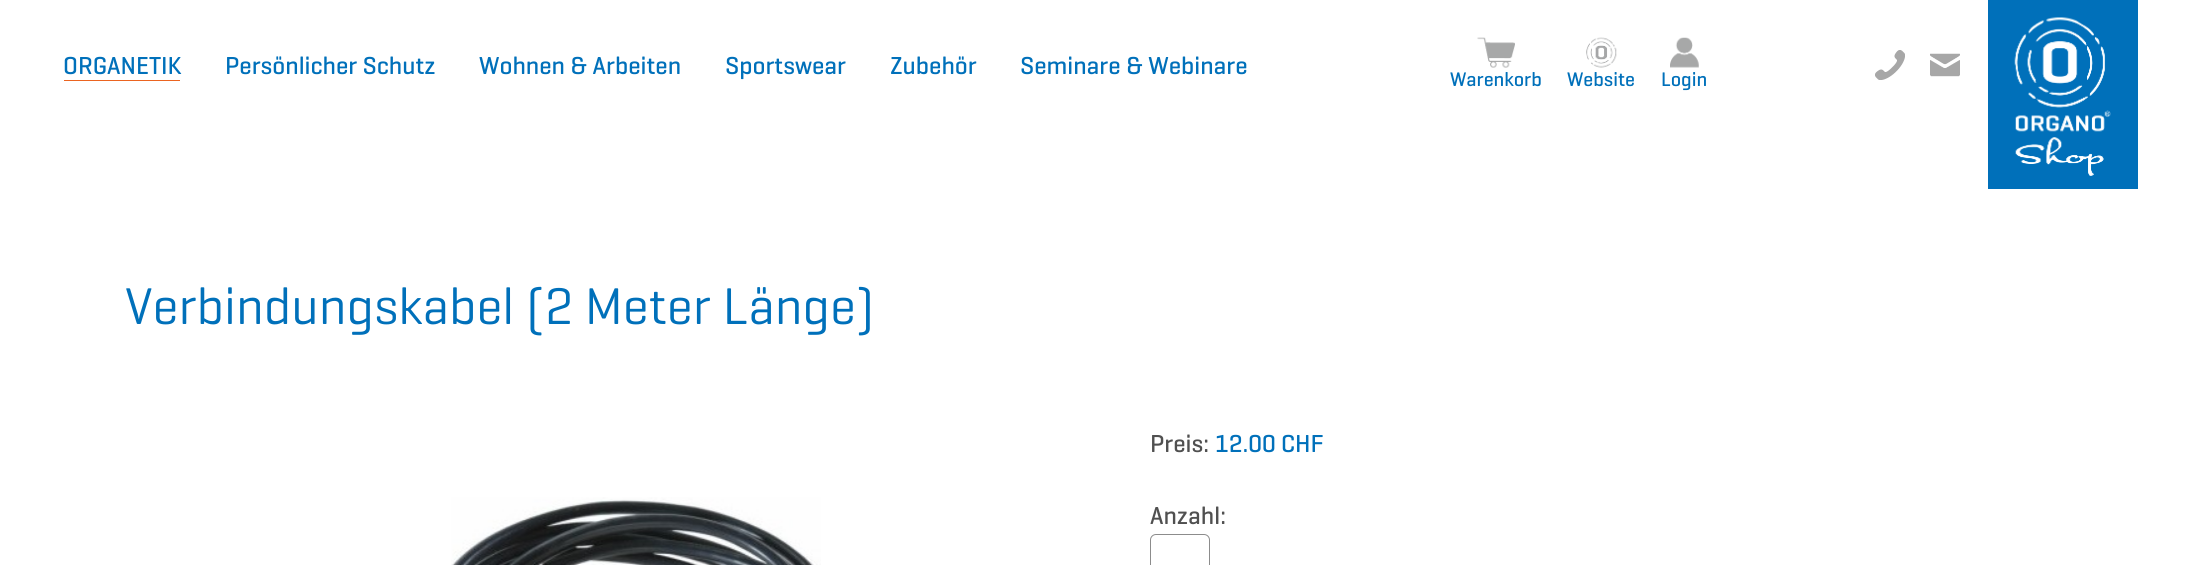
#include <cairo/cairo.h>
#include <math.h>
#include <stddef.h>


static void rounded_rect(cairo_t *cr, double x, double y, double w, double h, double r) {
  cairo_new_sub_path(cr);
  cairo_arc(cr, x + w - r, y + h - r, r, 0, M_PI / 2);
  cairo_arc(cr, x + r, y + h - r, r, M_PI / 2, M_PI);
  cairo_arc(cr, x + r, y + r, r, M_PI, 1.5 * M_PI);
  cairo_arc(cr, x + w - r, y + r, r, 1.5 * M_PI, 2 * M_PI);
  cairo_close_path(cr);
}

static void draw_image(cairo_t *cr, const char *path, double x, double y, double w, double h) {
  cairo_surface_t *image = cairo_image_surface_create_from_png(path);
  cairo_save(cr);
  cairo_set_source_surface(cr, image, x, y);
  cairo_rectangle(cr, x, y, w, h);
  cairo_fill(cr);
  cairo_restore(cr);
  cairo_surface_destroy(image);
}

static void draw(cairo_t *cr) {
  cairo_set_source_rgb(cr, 1, 1, 1);
  cairo_paint(cr);
  cairo_set_source_rgb(cr, 235 / 255.0, 100 / 255.0, 32 / 255.0);
  cairo_rectangle(cr, 64, 80, 116, 1);
  cairo_fill(cr);
  draw_image(cr, "images/1.png", 1477, 37, 38, 31);
  draw_image(cr, "images/2.png", 1586, 37, 31, 31);
  draw_image(cr, "images/3.png", 1670, 37, 29, 31);
  draw_image(cr, "images/4.png", 1875, 50, 30, 30);
  draw_image(cr, "images/5.png", 1930, 53, 30, 24);
  cairo_set_source_rgb(cr, 0, 112 / 255.0, 186 / 255.0);
  cairo_rectangle(cr, 1988, 0, 150, 189);
  cairo_fill(cr);
  draw_image(cr, "images/6.png", 2014, 17, 97, 159);
  draw_image(cr, "images/7.png", 451, 497, 370, 68);
  rounded_rect(cr, 1150.5, 534.5, 59, 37, 5.5);
  cairo_set_source_rgb(cr, 140 / 255.0, 140 / 255.0, 140 / 255.0);
  cairo_set_line_width(cr, 1);
  cairo_stroke(cr);
  cairo_select_font_face(cr, "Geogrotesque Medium", CAIRO_FONT_SLANT_NORMAL, CAIRO_FONT_WEIGHT_NORMAL);
  cairo_set_font_size(cr, 25);
  cairo_set_source_rgb(cr, 0, 112 / 255.0, 186 / 255.0);
  cairo_move_to(cr, 63, 74);
  cairo_show_text(cr, "ORGANETIK");
  cairo_move_to(cr, 225, 74);
  cairo_show_text(cr, "Persönlicher Schutz");
  cairo_move_to(cr, 479, 74);
  cairo_show_text(cr, "Wohnen & Arbeiten");
  cairo_move_to(cr, 725, 74);
  cairo_show_text(cr, "Sportswear");
  cairo_move_to(cr, 890, 74);
  cairo_show_text(cr, "Zubehör");
  cairo_move_to(cr, 1020, 74);
  cairo_show_text(cr, "Seminare & Webinare");
  cairo_set_font_size(cr, 20);
  cairo_move_to(cr, 1450, 86);
  cairo_show_text(cr, "Warenkorb");
  cairo_move_to(cr, 1567, 86);
  cairo_show_text(cr, "Website");
  cairo_move_to(cr, 1661, 86);
  cairo_show_text(cr, "Login");
  cairo_select_font_face(cr, "Geogrotesque", CAIRO_FONT_SLANT_NORMAL, CAIRO_FONT_WEIGHT_NORMAL);
  cairo_set_font_size(cr, 52.5);
  cairo_move_to(cr, 125, 324);
  cairo_show_text(cr, "Verbindungskabel (2 Meter Länge)");
  cairo_select_font_face(cr, "Geogrotesque Medium", CAIRO_FONT_SLANT_NORMAL, CAIRO_FONT_WEIGHT_NORMAL);
  cairo_set_font_size(cr, 25);
  cairo_set_source_rgb(cr, 80 / 255.0, 80 / 255.0, 80 / 255.0);
  cairo_move_to(cr, 1150, 452);
  cairo_show_text(cr, "Preis:");
  cairo_set_source_rgb(cr, 0, 112 / 255.0, 186 / 255.0);
  cairo_move_to(cr, 1215, 452);
  cairo_show_text(cr, "12.00 CHF");
  cairo_set_source_rgb(cr, 80 / 255.0, 80 / 255.0, 80 / 255.0);
  cairo_move_to(cr, 1150, 524);
  cairo_show_text(cr, "Anzahl:");
}

int main(void) {
  cairo_surface_t *surface = cairo_image_surface_create(CAIRO_FORMAT_RGB24, 2199, 565);
  cairo_t *cr = cairo_create(surface);
  cairo_font_options_t *options = cairo_font_options_create();
  cairo_font_options_set_hint_metrics(options, CAIRO_HINT_METRICS_OFF);
  cairo_font_options_set_hint_style(options, CAIRO_HINT_STYLE_NONE);
  cairo_set_font_options(cr, options);
  cairo_set_miter_limit(cr, 4);
  draw(cr);
  cairo_surface_write_to_png(surface, "out.png");
  cairo_font_options_destroy(options);
  cairo_destroy(cr);
  cairo_surface_destroy(surface);
  return 0;
}
